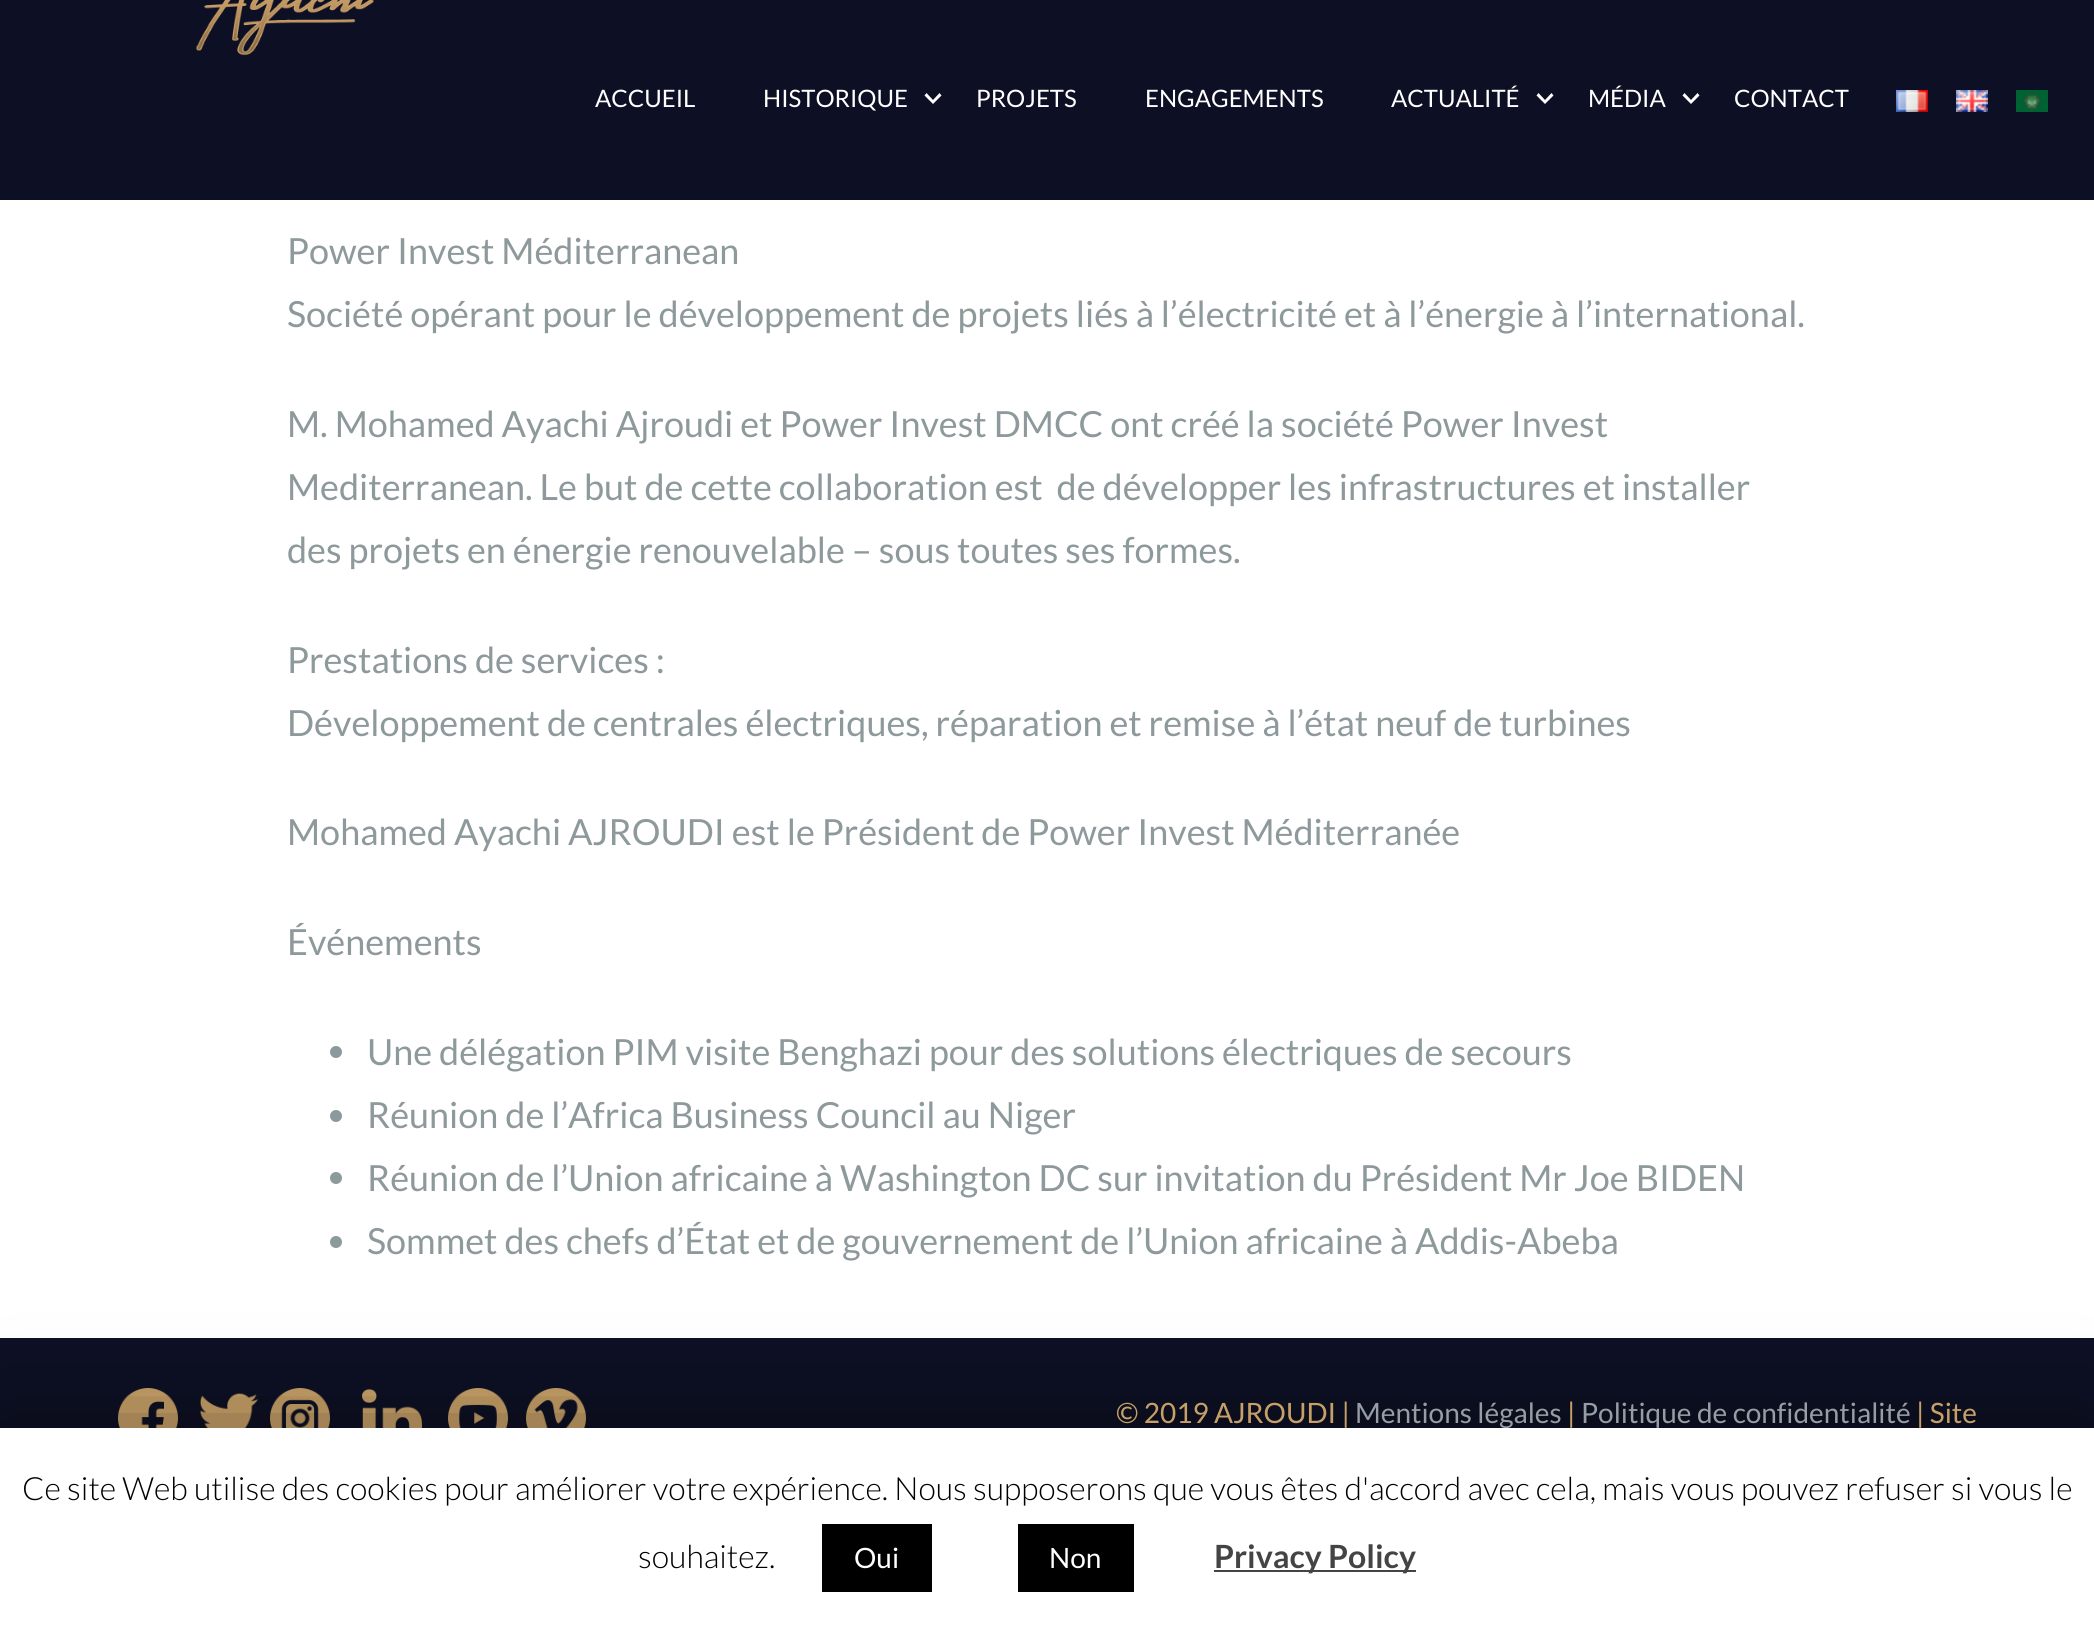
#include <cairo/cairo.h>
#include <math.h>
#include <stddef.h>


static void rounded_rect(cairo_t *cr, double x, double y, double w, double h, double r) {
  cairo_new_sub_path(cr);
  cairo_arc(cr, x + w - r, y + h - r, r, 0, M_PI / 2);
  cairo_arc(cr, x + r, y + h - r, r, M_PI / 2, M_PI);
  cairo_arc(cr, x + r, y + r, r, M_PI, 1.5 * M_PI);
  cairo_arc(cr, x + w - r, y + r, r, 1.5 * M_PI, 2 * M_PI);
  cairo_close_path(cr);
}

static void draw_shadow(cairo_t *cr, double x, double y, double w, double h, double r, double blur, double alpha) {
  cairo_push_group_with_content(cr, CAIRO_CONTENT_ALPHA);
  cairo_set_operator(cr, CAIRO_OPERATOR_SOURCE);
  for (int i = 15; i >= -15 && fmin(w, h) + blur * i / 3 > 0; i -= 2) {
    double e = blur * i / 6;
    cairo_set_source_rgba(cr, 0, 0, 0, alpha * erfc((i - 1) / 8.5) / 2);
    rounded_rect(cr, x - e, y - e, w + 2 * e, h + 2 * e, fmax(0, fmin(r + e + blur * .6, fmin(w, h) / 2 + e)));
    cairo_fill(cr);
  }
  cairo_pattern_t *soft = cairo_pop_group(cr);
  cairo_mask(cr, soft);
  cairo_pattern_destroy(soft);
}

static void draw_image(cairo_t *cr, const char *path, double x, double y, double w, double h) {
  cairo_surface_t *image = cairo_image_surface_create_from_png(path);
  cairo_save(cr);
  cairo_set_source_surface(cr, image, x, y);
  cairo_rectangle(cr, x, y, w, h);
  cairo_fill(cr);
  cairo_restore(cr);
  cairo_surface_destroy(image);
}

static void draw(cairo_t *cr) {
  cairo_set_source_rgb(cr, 1, 1, 1);
  cairo_paint(cr);
  cairo_set_source_rgb(cr, 13 / 255.0, 16 / 255.0, 36 / 255.0);
  cairo_rectangle(cr, 0, 0, 2094, 200);
  cairo_fill(cr);
  draw_image(cr, "images/1.png", 196, 0, 178, 56);
  cairo_set_source_rgb(cr, 1, 1, 1);
  cairo_new_path(cr);
  cairo_move_to(cr, 926.5, 93);
  cairo_line_to(cr, 933, 100);
  cairo_line_to(cr, 939.5, 93);
  cairo_line_to(cr, 941.5, 95.5);
  cairo_line_to(cr, 933, 104);
  cairo_line_to(cr, 924.5, 95.5);
  cairo_close_path(cr);
  cairo_fill(cr);
  cairo_new_path(cr);
  cairo_move_to(cr, 1538.5, 93);
  cairo_line_to(cr, 1545, 100);
  cairo_line_to(cr, 1551.5, 93);
  cairo_line_to(cr, 1553.5, 95.5);
  cairo_line_to(cr, 1545, 104);
  cairo_line_to(cr, 1536.5, 95.5);
  cairo_close_path(cr);
  cairo_fill(cr);
  cairo_new_path(cr);
  cairo_move_to(cr, 1684.5, 93);
  cairo_line_to(cr, 1691, 100);
  cairo_line_to(cr, 1697.5, 93);
  cairo_line_to(cr, 1699.5, 95.5);
  cairo_line_to(cr, 1691, 104);
  cairo_line_to(cr, 1682.5, 95.5);
  cairo_close_path(cr);
  cairo_fill(cr);
  draw_image(cr, "images/2.png", 1896, 90, 32, 22);
  draw_image(cr, "images/3.png", 1956, 90, 32, 22);
  draw_image(cr, "images/4.png", 2016, 90, 32, 22);
  cairo_set_source_rgb(cr, 142 / 255.0, 153 / 255.0, 156 / 255.0);
  cairo_arc(cr, 336, 1052, 6, 0, 2 * M_PI);
  cairo_fill(cr);
  cairo_arc(cr, 336, 1116, 6, 0, 2 * M_PI);
  cairo_fill(cr);
  cairo_arc(cr, 336, 1178, 6, 0, 2 * M_PI);
  cairo_fill(cr);
  cairo_arc(cr, 336, 1242, 6, 0, 2 * M_PI);
  cairo_fill(cr);
  cairo_set_source_rgb(cr, 13 / 255.0, 16 / 255.0, 36 / 255.0);
  cairo_rectangle(cr, 0, 1338, 2094, 90);
  cairo_fill(cr);
  draw_image(cr, "images/5.png", 118, 1388, 60, 40);
  draw_image(cr, "images/6.png", 200, 1393, 58, 35);
  draw_image(cr, "images/7.png", 270, 1388, 60, 40);
  draw_image(cr, "images/8.png", 362, 1389, 60, 39);
  draw_image(cr, "images/9.png", 448, 1388, 60, 40);
  draw_image(cr, "images/10.png", 526, 1388, 60, 40);
  cairo_set_source_rgb(cr, 0, 0, 0);
  draw_shadow(cr, 0, 1438, 2094, 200, 0, 50, 0.5);
  cairo_select_font_face(cr, "Lato", CAIRO_FONT_SLANT_NORMAL, CAIRO_FONT_WEIGHT_NORMAL);
  cairo_set_font_size(cr, 24);
  cairo_set_source_rgb(cr, 1, 1, 1);
  cairo_move_to(cr, 595, 107);
  cairo_show_text(cr, "ACCUEIL");
  cairo_move_to(cr, 763, 107);
  cairo_show_text(cr, "HISTORIQUE");
  cairo_move_to(cr, 976, 107);
  cairo_show_text(cr, "PROJETS");
  cairo_move_to(cr, 1145, 107);
  cairo_show_text(cr, "ENGAGEMENTS");
  cairo_move_to(cr, 1391, 107);
  cairo_show_text(cr, "ACTUALITÉ");
  cairo_move_to(cr, 1588, 107);
  cairo_show_text(cr, "MÉDIA");
  cairo_move_to(cr, 1734, 107);
  cairo_show_text(cr, "CONTACT");
  cairo_set_font_size(cr, 36);
  cairo_set_source_rgb(cr, 142 / 255.0, 153 / 255.0, 156 / 255.0);
  cairo_move_to(cr, 287, 264);
  cairo_show_text(cr, "Power Invest Méditerranean");
  cairo_move_to(cr, 287, 327);
  cairo_show_text(cr, "Société opérant pour le développement de projets liés à l’électricité et à l’énergie à l’international.");
  cairo_move_to(cr, 287, 437);
  cairo_show_text(cr, "M. Mohamed Ayachi Ajroudi et Power Invest DMCC ont créé la société Power Invest");
  cairo_move_to(cr, 287, 500);
  cairo_show_text(cr, "Mediterranean. Le but de cette collaboration est  de développer les infrastructures et installer");
  cairo_move_to(cr, 287, 563);
  cairo_show_text(cr, "des projets en énergie renouvelable – sous toutes ses formes.");
  cairo_move_to(cr, 287, 673);
  cairo_show_text(cr, "Prestations de services :");
  cairo_move_to(cr, 287, 736);
  cairo_show_text(cr, "Développement de centrales électriques, réparation et remise à l’état neuf de turbines");
  cairo_move_to(cr, 287, 845);
  cairo_show_text(cr, "Mohamed Ayachi AJROUDI est le Président de Power Invest Méditerranée");
  cairo_move_to(cr, 287, 955);
  cairo_show_text(cr, "Événements");
  cairo_move_to(cr, 367, 1065);
  cairo_show_text(cr, "Une délégation PIM visite Benghazi pour des solutions électriques de secours");
  cairo_move_to(cr, 367, 1128);
  cairo_show_text(cr, "Réunion de l’Africa Business Council au Niger");
  cairo_move_to(cr, 367, 1191);
  cairo_show_text(cr, "Réunion de l’Union africaine à Washington DC sur invitation du Président Mr Joe BIDEN");
  cairo_move_to(cr, 367, 1254);
  cairo_show_text(cr, "Sommet des chefs d’État et de gouvernement de l’Union africaine à Addis-Abeba");
  cairo_set_font_size(cr, 28);
  cairo_set_source_rgb(cr, 199 / 255.0, 160 / 255.0, 104 / 255.0);
  cairo_move_to(cr, 1116, 1423);
  cairo_show_text(cr, "© 2019 AJROUDI |");
  cairo_set_source_rgb(cr, 150 / 255.0, 157 / 255.0, 163 / 255.0);
  cairo_move_to(cr, 1355, 1423);
  cairo_show_text(cr, "Mentions légales");
  cairo_set_source_rgb(cr, 199 / 255.0, 160 / 255.0, 104 / 255.0);
  cairo_move_to(cr, 1567, 1423);
  cairo_show_text(cr, "|");
  cairo_set_source_rgb(cr, 150 / 255.0, 157 / 255.0, 163 / 255.0);
  cairo_move_to(cr, 1581, 1423);
  cairo_show_text(cr, "Politique de confidentialité");
  cairo_set_source_rgb(cr, 199 / 255.0, 160 / 255.0, 104 / 255.0);
  cairo_move_to(cr, 1916, 1423);
  cairo_show_text(cr, "| Site");
  cairo_set_source_rgb(cr, 1, 1, 1);
  cairo_rectangle(cr, 0, 1428, 2094, 199);
  cairo_fill(cr);
  cairo_select_font_face(cr, "Lato Light", CAIRO_FONT_SLANT_NORMAL, CAIRO_FONT_WEIGHT_NORMAL);
  cairo_set_font_size(cr, 32);
  cairo_set_source_rgb(cr, 0, 0, 0);
  cairo_move_to(cr, 22, 1500);
  cairo_show_text(cr, "Ce site Web utilise des cookies pour améliorer votre expérience. Nous supposerons que vous êtes d'accord avec cela, mais vous pouvez refuser si vous le");
  cairo_move_to(cr, 638, 1568);
  cairo_show_text(cr, "souhaitez.");
  cairo_rectangle(cr, 822, 1524, 110, 68);
  cairo_fill(cr);
  cairo_select_font_face(cr, "Lato", CAIRO_FONT_SLANT_NORMAL, CAIRO_FONT_WEIGHT_NORMAL);
  cairo_set_font_size(cr, 28);
  cairo_set_source_rgb(cr, 1, 1, 1);
  cairo_move_to(cr, 854, 1568);
  cairo_show_text(cr, "Oui");
  cairo_set_source_rgb(cr, 0, 0, 0);
  cairo_rectangle(cr, 1018, 1524, 116, 68);
  cairo_fill(cr);
  cairo_set_source_rgb(cr, 1, 1, 1);
  cairo_move_to(cr, 1049, 1568);
  cairo_show_text(cr, "Non");
  cairo_set_source_rgb(cr, 68 / 255.0, 68 / 255.0, 68 / 255.0);
  cairo_rectangle(cr, 1214, 1570, 202, 2);
  cairo_fill(cr);
  cairo_select_font_face(cr, "Lato", CAIRO_FONT_SLANT_NORMAL, CAIRO_FONT_WEIGHT_BOLD);
  cairo_set_font_size(cr, 32);
  cairo_move_to(cr, 1214, 1568);
  cairo_show_text(cr, "Privacy Policy");
}

int main(void) {
  cairo_surface_t *surface = cairo_image_surface_create(CAIRO_FORMAT_RGB24, 2094, 1627);
  cairo_t *cr = cairo_create(surface);
  cairo_font_options_t *options = cairo_font_options_create();
  cairo_font_options_set_hint_metrics(options, CAIRO_HINT_METRICS_OFF);
  cairo_font_options_set_hint_style(options, CAIRO_HINT_STYLE_NONE);
  cairo_set_font_options(cr, options);
  cairo_set_miter_limit(cr, 4);
  draw(cr);
  cairo_surface_write_to_png(surface, "out.png");
  cairo_font_options_destroy(options);
  cairo_destroy(cr);
  cairo_surface_destroy(surface);
  return 0;
}
